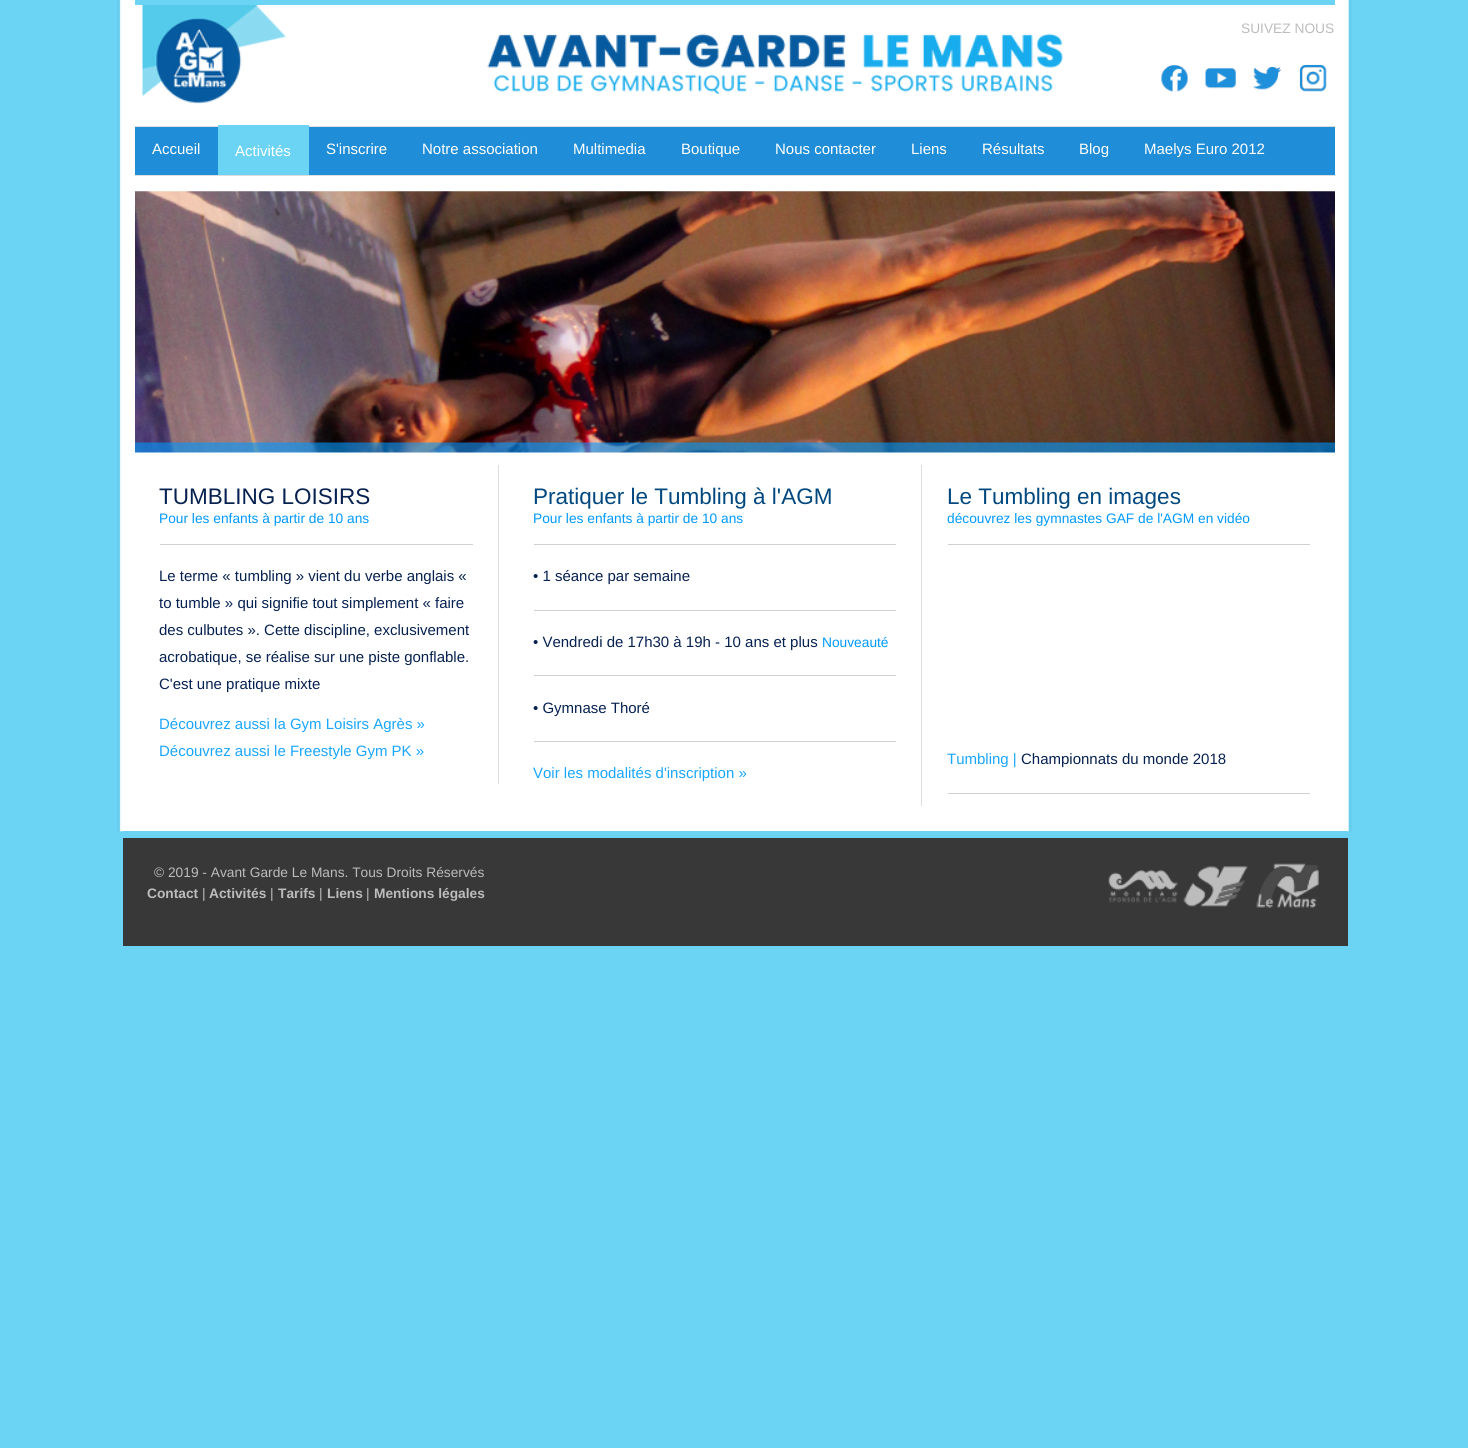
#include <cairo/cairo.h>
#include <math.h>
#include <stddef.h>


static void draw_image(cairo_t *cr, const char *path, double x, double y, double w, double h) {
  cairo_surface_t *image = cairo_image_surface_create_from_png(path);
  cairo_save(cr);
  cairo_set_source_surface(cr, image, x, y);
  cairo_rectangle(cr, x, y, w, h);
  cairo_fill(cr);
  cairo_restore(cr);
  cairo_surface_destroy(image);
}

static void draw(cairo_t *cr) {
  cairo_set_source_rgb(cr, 107 / 255.0, 211 / 255.0, 244 / 255.0);
  cairo_paint(cr);
  draw_image(cr, "images/1.png", 117, 0, 1235, 832);
  cairo_set_source_rgb(cr, 107 / 255.0, 211 / 255.0, 244 / 255.0);
  cairo_rectangle(cr, 135, 0, 1200, 5);
  cairo_fill(cr);
  draw_image(cr, "images/2.png", 142, 5, 921, 99);
  draw_image(cr, "images/3.png", 1161, 65, 27, 27);
  draw_image(cr, "images/4.png", 1205, 67, 31, 22);
  draw_image(cr, "images/5.png", 1253, 67, 28, 23);
  draw_image(cr, "images/6.png", 1299, 64, 28, 28);
  cairo_set_source_rgb(cr, 31 / 255.0, 141 / 255.0, 215 / 255.0);
  cairo_rectangle(cr, 135, 127, 1200, 48);
  cairo_fill(cr);
  cairo_set_source_rgb(cr, 221 / 255.0, 221 / 255.0, 221 / 255.0);
  cairo_rectangle(cr, 135, 126, 1200, 1);
  cairo_fill(cr);
  cairo_rectangle(cr, 135, 175, 1200, 1);
  cairo_fill(cr);
  cairo_set_source_rgb(cr, 107 / 255.0, 211 / 255.0, 244 / 255.0);
  cairo_rectangle(cr, 218, 125, 91, 50);
  cairo_fill(cr);
  draw_image(cr, "images/7.png", 135, 191, 1200, 262);
  cairo_set_source_rgb(cr, 222 / 255.0, 222 / 255.0, 222 / 255.0);
  cairo_rectangle(cr, 498, 465, 1, 319);
  cairo_fill(cr);
  cairo_set_source_rgb(cr, 208 / 255.0, 208 / 255.0, 208 / 255.0);
  cairo_rectangle(cr, 160, 544, 313, 1);
  cairo_fill(cr);
  cairo_set_source_rgb(cr, 222 / 255.0, 222 / 255.0, 222 / 255.0);
  cairo_rectangle(cr, 921, 465, 1, 341);
  cairo_fill(cr);
  cairo_set_source_rgb(cr, 208 / 255.0, 208 / 255.0, 208 / 255.0);
  cairo_rectangle(cr, 534, 544, 362, 1);
  cairo_fill(cr);
  cairo_rectangle(cr, 534, 610, 362, 1);
  cairo_fill(cr);
  cairo_rectangle(cr, 534, 675, 362, 1);
  cairo_fill(cr);
  cairo_rectangle(cr, 534, 741, 362, 1);
  cairo_fill(cr);
  cairo_rectangle(cr, 948, 544, 362, 1);
  cairo_fill(cr);
  cairo_rectangle(cr, 948, 793, 362, 1);
  cairo_fill(cr);
  cairo_set_source_rgb(cr, 56 / 255.0, 56 / 255.0, 56 / 255.0);
  cairo_rectangle(cr, 123, 838, 1225, 108);
  cairo_fill(cr);
  cairo_set_source_rgb(cr, 107 / 255.0, 211 / 255.0, 244 / 255.0);
  cairo_rectangle(cr, 123, 831, 1225, 1);
  cairo_fill(cr);
  draw_image(cr, "images/8.png", 1108, 870, 70, 33);
  draw_image(cr, "images/9.png", 1183, 866, 65, 41);
  draw_image(cr, "images/10.png", 1256, 863, 63, 45);
  cairo_select_font_face(cr, "Liberation Sans", CAIRO_FONT_SLANT_NORMAL, CAIRO_FONT_WEIGHT_NORMAL);
  cairo_set_font_size(cr, 13.75);
  cairo_set_source_rgb(cr, 188 / 255.0, 188 / 255.0, 188 / 255.0);
  cairo_move_to(cr, 1241, 33);
  cairo_show_text(cr, "SUIVEZ NOUS");
  cairo_set_font_size(cr, 15);
  cairo_set_source_rgb(cr, 1, 1, 1);
  cairo_move_to(cr, 152, 154);
  cairo_show_text(cr, "Accueil");
  cairo_move_to(cr, 235, 156);
  cairo_show_text(cr, "Activités");
  cairo_move_to(cr, 326, 154);
  cairo_show_text(cr, "S'inscrire");
  cairo_move_to(cr, 422, 154);
  cairo_show_text(cr, "Notre association");
  cairo_move_to(cr, 573, 154);
  cairo_show_text(cr, "Multimedia");
  cairo_move_to(cr, 681, 154);
  cairo_show_text(cr, "Boutique");
  cairo_move_to(cr, 775, 154);
  cairo_show_text(cr, "Nous contacter");
  cairo_move_to(cr, 911, 154);
  cairo_show_text(cr, "Liens");
  cairo_move_to(cr, 982, 154);
  cairo_show_text(cr, "Résultats");
  cairo_move_to(cr, 1079, 154);
  cairo_show_text(cr, "Blog");
  cairo_move_to(cr, 1144, 154);
  cairo_show_text(cr, "Maelys Euro 2012");
  cairo_set_font_size(cr, 22.5);
  cairo_set_source_rgb(cr, 6 / 255.0, 33 / 255.0, 80 / 255.0);
  cairo_move_to(cr, 159, 504);
  cairo_show_text(cr, "TUMBLING LOISIRS");
  cairo_set_font_size(cr, 13.75);
  cairo_set_source_rgb(cr, 0, 153 / 255.0, 1);
  cairo_move_to(cr, 159, 523);
  cairo_show_text(cr, "Pour les enfants à partir de 10 ans");
  cairo_set_font_size(cr, 15);
  cairo_set_source_rgb(cr, 6 / 255.0, 33 / 255.0, 80 / 255.0);
  cairo_move_to(cr, 159, 581);
  cairo_show_text(cr, "Le terme « tumbling » vient du verbe anglais «");
  cairo_move_to(cr, 159, 608);
  cairo_show_text(cr, "to tumble » qui signifie tout simplement « faire");
  cairo_move_to(cr, 159, 635);
  cairo_show_text(cr, "des culbutes ». Cette discipline, exclusivement");
  cairo_move_to(cr, 159, 662);
  cairo_show_text(cr, "acrobatique, se réalise sur une piste gonflable.");
  cairo_move_to(cr, 159, 689);
  cairo_show_text(cr, "C'est une pratique mixte");
  cairo_set_source_rgb(cr, 26 / 255.0, 166 / 255.0, 254 / 255.0);
  cairo_move_to(cr, 159, 729);
  cairo_show_text(cr, "Découvrez aussi la Gym Loisirs Agrès »");
  cairo_move_to(cr, 159, 756);
  cairo_show_text(cr, "Découvrez aussi le Freestyle Gym PK »");
  cairo_set_font_size(cr, 22.5);
  cairo_set_source_rgb(cr, 1 / 255.0, 72 / 255.0, 126 / 255.0);
  cairo_move_to(cr, 533, 504);
  cairo_show_text(cr, "Pratiquer le Tumbling à l'AGM");
  cairo_set_font_size(cr, 13.75);
  cairo_set_source_rgb(cr, 0, 153 / 255.0, 1);
  cairo_move_to(cr, 533, 523);
  cairo_show_text(cr, "Pour les enfants à partir de 10 ans");
  cairo_set_font_size(cr, 15);
  cairo_set_source_rgb(cr, 6 / 255.0, 33 / 255.0, 80 / 255.0);
  cairo_move_to(cr, 533, 581);
  cairo_show_text(cr, "• 1 séance par semaine");
  cairo_move_to(cr, 533, 647);
  cairo_show_text(cr, "• Vendredi de 17h30 à 19h - 10 ans et plus");
  cairo_set_font_size(cr, 13.75);
  cairo_set_source_rgb(cr, 0, 153 / 255.0, 1);
  cairo_move_to(cr, 822, 647);
  cairo_show_text(cr, "Nouveauté");
  cairo_set_font_size(cr, 15);
  cairo_set_source_rgb(cr, 6 / 255.0, 33 / 255.0, 80 / 255.0);
  cairo_move_to(cr, 533, 713);
  cairo_show_text(cr, "• Gymnase Thoré");
  cairo_set_source_rgb(cr, 26 / 255.0, 166 / 255.0, 254 / 255.0);
  cairo_move_to(cr, 533, 778);
  cairo_show_text(cr, "Voir les modalités d'inscription »");
  cairo_set_font_size(cr, 22.5);
  cairo_set_source_rgb(cr, 1 / 255.0, 72 / 255.0, 126 / 255.0);
  cairo_move_to(cr, 947, 504);
  cairo_show_text(cr, "Le Tumbling en images");
  cairo_set_font_size(cr, 13.75);
  cairo_set_source_rgb(cr, 0, 153 / 255.0, 1);
  cairo_move_to(cr, 947, 523);
  cairo_show_text(cr, "découvrez les gymnastes GAF de l'AGM en vidéo");
  cairo_set_font_size(cr, 15);
  cairo_set_source_rgb(cr, 26 / 255.0, 166 / 255.0, 254 / 255.0);
  cairo_move_to(cr, 947, 764);
  cairo_show_text(cr, "Tumbling |");
  cairo_set_source_rgb(cr, 6 / 255.0, 33 / 255.0, 80 / 255.0);
  cairo_move_to(cr, 1021, 764);
  cairo_show_text(cr, "Championnats du monde 2018");
  cairo_set_font_size(cr, 13.75);
  cairo_set_source_rgb(cr, 188 / 255.0, 188 / 255.0, 188 / 255.0);
  cairo_move_to(cr, 154, 877);
  cairo_show_text(cr, "© 2019 - Avant Garde Le Mans. Tous Droits Réservés");
  cairo_select_font_face(cr, "Liberation Sans", CAIRO_FONT_SLANT_NORMAL, CAIRO_FONT_WEIGHT_BOLD);
  cairo_move_to(cr, 147, 898);
  cairo_show_text(cr, "Contact");
  cairo_select_font_face(cr, "Liberation Sans", CAIRO_FONT_SLANT_NORMAL, CAIRO_FONT_WEIGHT_NORMAL);
  cairo_move_to(cr, 202, 898);
  cairo_show_text(cr, "|");
  cairo_select_font_face(cr, "Liberation Sans", CAIRO_FONT_SLANT_NORMAL, CAIRO_FONT_WEIGHT_BOLD);
  cairo_move_to(cr, 209, 898);
  cairo_show_text(cr, "Activités");
  cairo_select_font_face(cr, "Liberation Sans", CAIRO_FONT_SLANT_NORMAL, CAIRO_FONT_WEIGHT_NORMAL);
  cairo_move_to(cr, 270, 898);
  cairo_show_text(cr, "|");
  cairo_select_font_face(cr, "Liberation Sans", CAIRO_FONT_SLANT_NORMAL, CAIRO_FONT_WEIGHT_BOLD);
  cairo_move_to(cr, 278, 898);
  cairo_show_text(cr, "Tarifs");
  cairo_select_font_face(cr, "Liberation Sans", CAIRO_FONT_SLANT_NORMAL, CAIRO_FONT_WEIGHT_NORMAL);
  cairo_move_to(cr, 319, 898);
  cairo_show_text(cr, "|");
  cairo_select_font_face(cr, "Liberation Sans", CAIRO_FONT_SLANT_NORMAL, CAIRO_FONT_WEIGHT_BOLD);
  cairo_move_to(cr, 327, 898);
  cairo_show_text(cr, "Liens");
  cairo_select_font_face(cr, "Liberation Sans", CAIRO_FONT_SLANT_NORMAL, CAIRO_FONT_WEIGHT_NORMAL);
  cairo_move_to(cr, 366, 898);
  cairo_show_text(cr, "|");
  cairo_select_font_face(cr, "Liberation Sans", CAIRO_FONT_SLANT_NORMAL, CAIRO_FONT_WEIGHT_BOLD);
  cairo_move_to(cr, 374, 898);
  cairo_show_text(cr, "Mentions légales");
}

int main(void) {
  cairo_surface_t *surface = cairo_image_surface_create(CAIRO_FORMAT_RGB24, 1468, 1448);
  cairo_t *cr = cairo_create(surface);
  cairo_font_options_t *options = cairo_font_options_create();
  cairo_font_options_set_hint_metrics(options, CAIRO_HINT_METRICS_OFF);
  cairo_font_options_set_hint_style(options, CAIRO_HINT_STYLE_NONE);
  cairo_set_font_options(cr, options);
  cairo_set_miter_limit(cr, 4);
  draw(cr);
  cairo_surface_write_to_png(surface, "out.png");
  cairo_font_options_destroy(options);
  cairo_destroy(cr);
  cairo_surface_destroy(surface);
  return 0;
}
